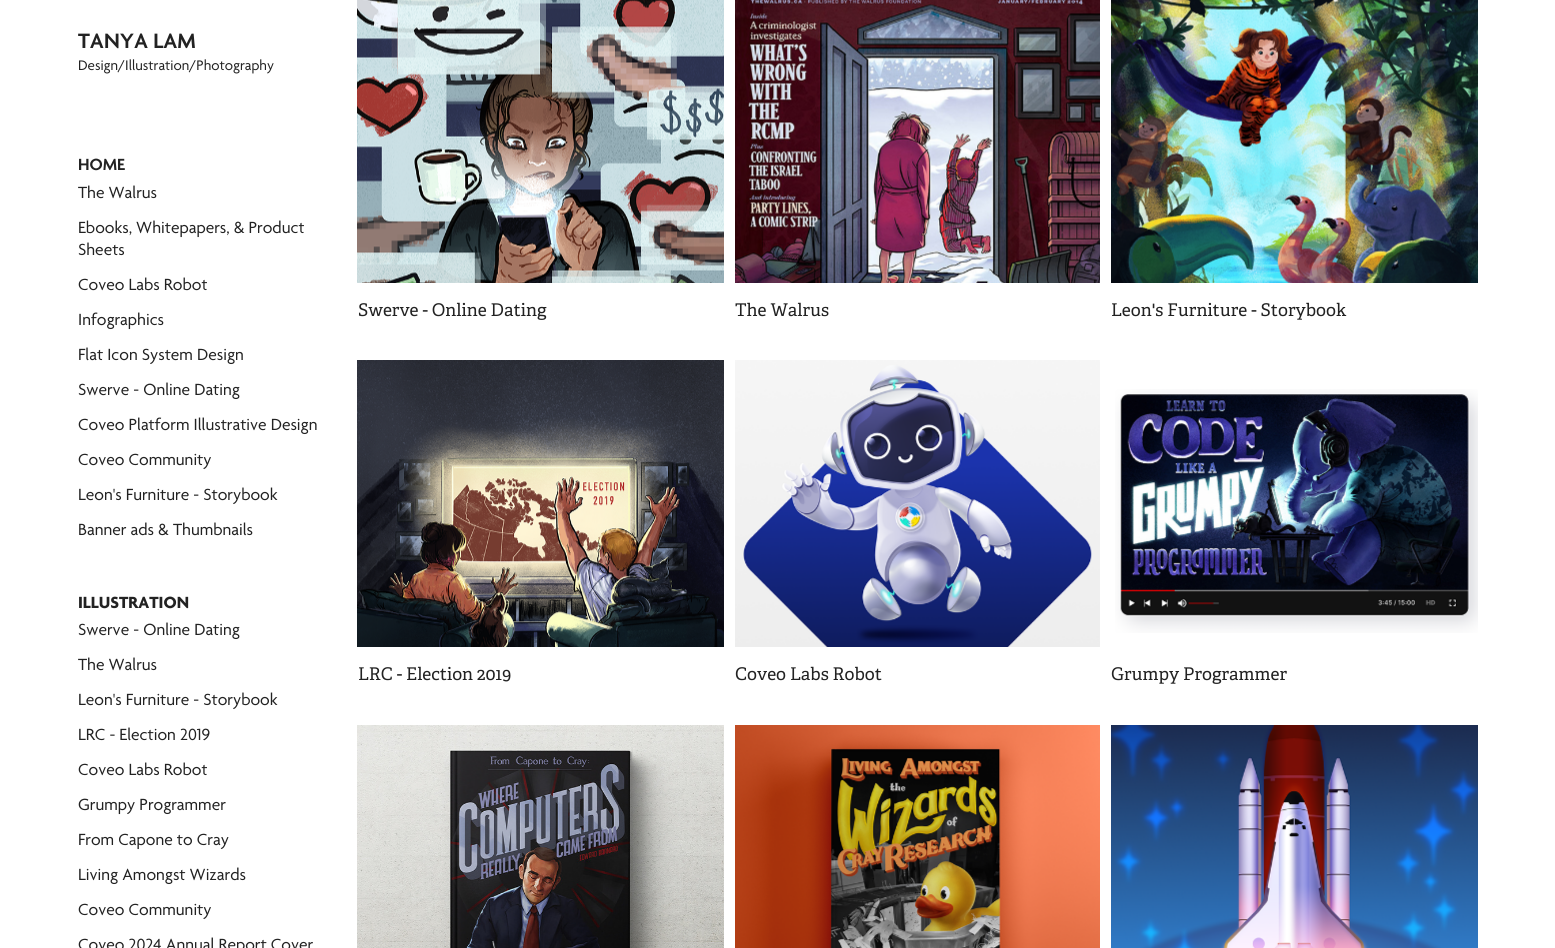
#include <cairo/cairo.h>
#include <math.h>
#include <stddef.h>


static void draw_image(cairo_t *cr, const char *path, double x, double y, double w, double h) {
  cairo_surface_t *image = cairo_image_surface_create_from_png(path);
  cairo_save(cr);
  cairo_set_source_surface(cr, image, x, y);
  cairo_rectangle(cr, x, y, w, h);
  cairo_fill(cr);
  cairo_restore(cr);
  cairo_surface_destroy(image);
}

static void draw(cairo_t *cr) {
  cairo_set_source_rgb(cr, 1, 1, 1);
  cairo_paint(cr);
  draw_image(cr, "images/1.png", 357, 0, 367, 283);
  draw_image(cr, "images/2.png", 735, 0, 365, 283);
  draw_image(cr, "images/3.png", 1111, 0, 367, 283);
  draw_image(cr, "images/4.png", 357, 360, 367, 287);
  draw_image(cr, "images/5.png", 735, 360, 365, 287);
  draw_image(cr, "images/6.png", 1115, 389, 363, 244);
  draw_image(cr, "images/7.png", 357, 725, 367, 223);
  draw_image(cr, "images/8.png", 735, 725, 365, 223);
  draw_image(cr, "images/9.png", 1111, 725, 367, 223);
  cairo_select_font_face(cr, "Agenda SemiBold", CAIRO_FONT_SLANT_NORMAL, CAIRO_FONT_WEIGHT_NORMAL);
  cairo_set_font_size(cr, 22.5);
  cairo_set_source_rgb(cr, 34 / 255.0, 34 / 255.0, 34 / 255.0);
  cairo_move_to(cr, 78, 48);
  cairo_show_text(cr, "TANYA LAM");
  cairo_select_font_face(cr, "Agenda", CAIRO_FONT_SLANT_NORMAL, CAIRO_FONT_WEIGHT_NORMAL);
  cairo_set_font_size(cr, 15);
  cairo_move_to(cr, 78, 70);
  cairo_show_text(cr, "Design/Illustration/Photography");
  cairo_select_font_face(cr, "Agenda SemiBold", CAIRO_FONT_SLANT_NORMAL, CAIRO_FONT_WEIGHT_NORMAL);
  cairo_set_font_size(cr, 17.5);
  cairo_move_to(cr, 78, 170);
  cairo_show_text(cr, "HOME");
  cairo_select_font_face(cr, "Agenda", CAIRO_FONT_SLANT_NORMAL, CAIRO_FONT_WEIGHT_NORMAL);
  cairo_move_to(cr, 78, 198);
  cairo_show_text(cr, "The Walrus");
  cairo_move_to(cr, 78, 233);
  cairo_show_text(cr, "Ebooks, Whitepapers, & Product");
  cairo_move_to(cr, 78, 255);
  cairo_show_text(cr, "Sheets");
  cairo_move_to(cr, 78, 290);
  cairo_show_text(cr, "Coveo Labs Robot");
  cairo_move_to(cr, 78, 325);
  cairo_show_text(cr, "Infographics");
  cairo_move_to(cr, 78, 360);
  cairo_show_text(cr, "Flat Icon System Design");
  cairo_move_to(cr, 78, 395);
  cairo_show_text(cr, "Swerve - Online Dating");
  cairo_move_to(cr, 78, 430);
  cairo_show_text(cr, "Coveo Platform Illustrative Design");
  cairo_move_to(cr, 78, 465);
  cairo_show_text(cr, "Coveo Community");
  cairo_move_to(cr, 78, 500);
  cairo_show_text(cr, "Leon's Furniture - Storybook");
  cairo_move_to(cr, 78, 535);
  cairo_show_text(cr, "Banner ads & Thumbnails");
  cairo_select_font_face(cr, "Agenda", CAIRO_FONT_SLANT_NORMAL, CAIRO_FONT_WEIGHT_BOLD);
  cairo_move_to(cr, 78, 608);
  cairo_show_text(cr, "ILLUSTRATION");
  cairo_select_font_face(cr, "Agenda", CAIRO_FONT_SLANT_NORMAL, CAIRO_FONT_WEIGHT_NORMAL);
  cairo_move_to(cr, 78, 635);
  cairo_show_text(cr, "Swerve - Online Dating");
  cairo_move_to(cr, 78, 670);
  cairo_show_text(cr, "The Walrus");
  cairo_move_to(cr, 78, 705);
  cairo_show_text(cr, "Leon's Furniture - Storybook");
  cairo_move_to(cr, 78, 740);
  cairo_show_text(cr, "LRC - Election 2019");
  cairo_move_to(cr, 78, 775);
  cairo_show_text(cr, "Coveo Labs Robot");
  cairo_move_to(cr, 78, 810);
  cairo_show_text(cr, "Grumpy Programmer");
  cairo_move_to(cr, 78, 845);
  cairo_show_text(cr, "From Capone to Cray");
  cairo_move_to(cr, 78, 880);
  cairo_show_text(cr, "Living Amongst Wizards");
  cairo_move_to(cr, 78, 915);
  cairo_show_text(cr, "Coveo Community");
  cairo_move_to(cr, 78, 950);
  cairo_show_text(cr, "Coveo 2024 Annual Report Cover");
  cairo_select_font_face(cr, "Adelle", CAIRO_FONT_SLANT_NORMAL, CAIRO_FONT_WEIGHT_NORMAL);
  cairo_move_to(cr, 358, 316);
  cairo_show_text(cr, "Swerve - Online Dating");
  cairo_move_to(cr, 735, 316);
  cairo_show_text(cr, "The Walrus");
  cairo_move_to(cr, 1111, 316);
  cairo_show_text(cr, "Leon's Furniture - Storybook");
  cairo_move_to(cr, 358, 680);
  cairo_show_text(cr, "LRC - Election 2019");
  cairo_move_to(cr, 735, 680);
  cairo_show_text(cr, "Coveo Labs Robot");
  cairo_move_to(cr, 1111, 680);
  cairo_show_text(cr, "Grumpy Programmer");
}

int main(void) {
  cairo_surface_t *surface = cairo_image_surface_create(CAIRO_FORMAT_RGB24, 1555, 948);
  cairo_t *cr = cairo_create(surface);
  cairo_font_options_t *options = cairo_font_options_create();
  cairo_font_options_set_hint_metrics(options, CAIRO_HINT_METRICS_OFF);
  cairo_font_options_set_hint_style(options, CAIRO_HINT_STYLE_NONE);
  cairo_set_font_options(cr, options);
  cairo_set_miter_limit(cr, 4);
  draw(cr);
  cairo_surface_write_to_png(surface, "out.png");
  cairo_font_options_destroy(options);
  cairo_destroy(cr);
  cairo_surface_destroy(surface);
  return 0;
}
